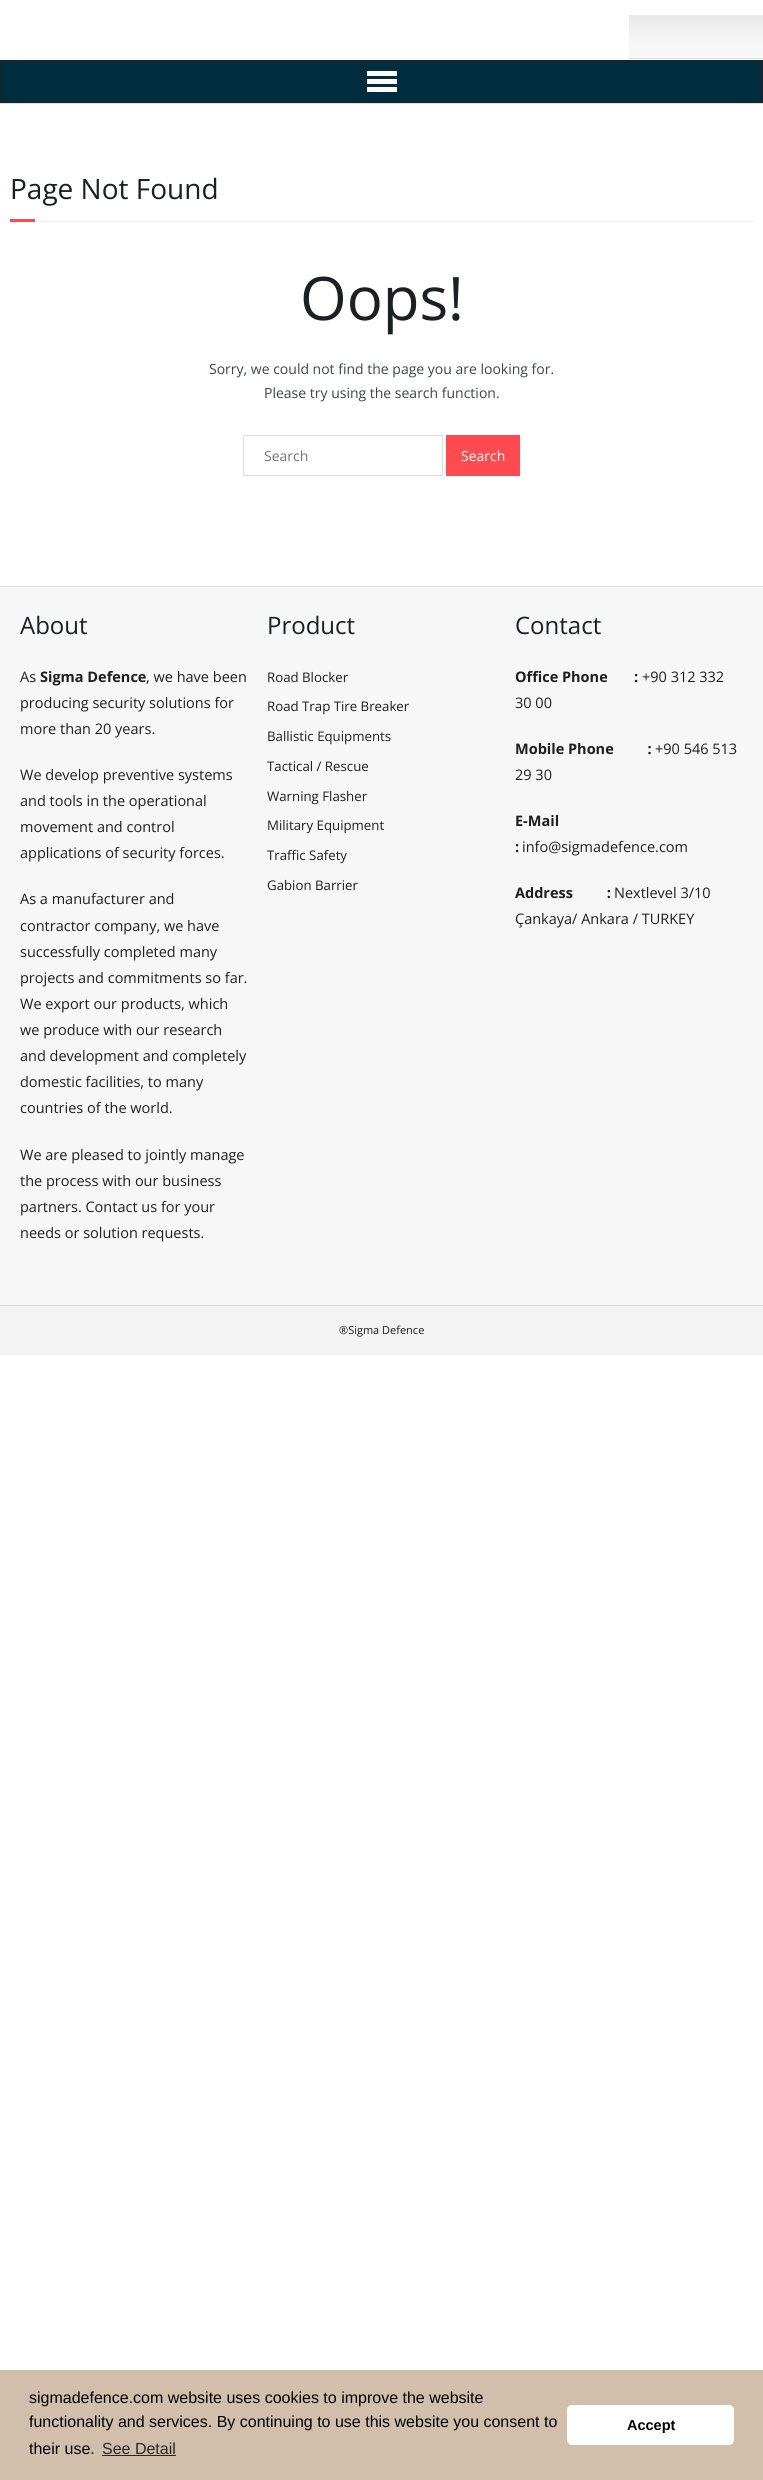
#include <cairo/cairo.h>
#include <math.h>
#include <stddef.h>


static void rounded_rect(cairo_t *cr, double x, double y, double w, double h, double r) {
  cairo_new_sub_path(cr);
  cairo_arc(cr, x + w - r, y + h - r, r, 0, M_PI / 2);
  cairo_arc(cr, x + r, y + h - r, r, M_PI / 2, M_PI);
  cairo_arc(cr, x + r, y + r, r, M_PI, 1.5 * M_PI);
  cairo_arc(cr, x + w - r, y + r, r, 1.5 * M_PI, 2 * M_PI);
  cairo_close_path(cr);
}

static void draw(cairo_t *cr) {
  cairo_pattern_t *gradient;
  cairo_set_source_rgb(cr, 1, 1, 1);
  cairo_paint(cr);
  gradient = cairo_pattern_create_linear(696, 58, 696, 15);
  cairo_pattern_add_color_stop_rgba(gradient, 0, 247 / 255.0, 247 / 255.0, 247 / 255.0, 1);
  cairo_pattern_add_color_stop_rgba(gradient, 0.35, 247 / 255.0, 247 / 255.0, 247 / 255.0, 1);
  cairo_pattern_add_color_stop_rgba(gradient, 1, 232 / 255.0, 232 / 255.0, 232 / 255.0, 1);
  cairo_set_source(cr, gradient);
  cairo_pattern_destroy(gradient);
  cairo_rectangle(cr, 629, 15, 134, 43);
  cairo_fill(cr);
  cairo_set_source_rgb(cr, 220 / 255.0, 220 / 255.0, 220 / 255.0);
  cairo_rectangle(cr, 629, 58, 134, 1);
  cairo_fill(cr);
  cairo_set_source_rgb(cr, 224 / 255.0, 224 / 255.0, 224 / 255.0);
  cairo_rectangle(cr, 0, 103, 763, 1);
  cairo_fill(cr);
  cairo_set_source_rgb(cr, 0, 45 / 255.0, 62 / 255.0);
  cairo_rectangle(cr, 0.5, 60.5, 762, 42);
  cairo_fill_preserve(cr);
  cairo_set_source_rgb(cr, 34 / 255.0, 34 / 255.0, 34 / 255.0);
  cairo_set_line_width(cr, 1);
  cairo_stroke(cr);
  cairo_set_source_rgb(cr, 1, 1, 1);
  cairo_rectangle(cr, 367, 71, 30, 5);
  cairo_fill(cr);
  cairo_rectangle(cr, 367, 79, 30, 5);
  cairo_fill(cr);
  cairo_rectangle(cr, 367, 87, 30, 5);
  cairo_fill(cr);
  cairo_set_source_rgb(cr, 1, 74 / 255.0, 80 / 255.0);
  cairo_rectangle(cr, 10, 219, 25, 3);
  cairo_fill(cr);
  cairo_set_source_rgb(cr, 238 / 255.0, 238 / 255.0, 238 / 255.0);
  cairo_rectangle(cr, 35, 221, 718, 1);
  cairo_fill(cr);
  cairo_rectangle(cr, 243.5, 435.5, 199, 40);
  cairo_set_source_rgb(cr, 224 / 255.0, 224 / 255.0, 224 / 255.0);
  cairo_stroke(cr);
  cairo_set_source_rgb(cr, 1, 74 / 255.0, 80 / 255.0);
  cairo_rectangle(cr, 446, 435, 74, 41);
  cairo_fill(cr);
  cairo_set_source_rgb(cr, 247 / 255.0, 247 / 255.0, 247 / 255.0);
  cairo_rectangle(cr, 0, 587, 763, 718);
  cairo_fill(cr);
  cairo_set_source_rgb(cr, 220 / 255.0, 220 / 255.0, 220 / 255.0);
  cairo_rectangle(cr, 0, 586, 763, 1);
  cairo_fill(cr);
  cairo_set_source_rgb(cr, 243 / 255.0, 243 / 255.0, 243 / 255.0);
  cairo_rectangle(cr, 0, 1306, 763, 49);
  cairo_fill(cr);
  cairo_set_source_rgb(cr, 220 / 255.0, 220 / 255.0, 220 / 255.0);
  cairo_rectangle(cr, 0, 1305, 763, 1);
  cairo_fill(cr);
  cairo_set_source_rgb(cr, 209 / 255.0, 191 / 255.0, 172 / 255.0);
  cairo_rectangle(cr, 0, 2370, 763, 110);
  cairo_fill(cr);
  cairo_set_source_rgb(cr, 42 / 255.0, 38 / 255.0, 34 / 255.0);
  cairo_rectangle(cr, 102, 2455, 74, 1);
  cairo_fill(cr);
  cairo_set_source_rgb(cr, 1, 1, 1);
  rounded_rect(cr, 567, 2405, 167, 40, 5);
  cairo_fill(cr);
  cairo_select_font_face(cr, "Open Sans", CAIRO_FONT_SLANT_NORMAL, CAIRO_FONT_WEIGHT_NORMAL);
  cairo_set_font_size(cr, 28);
  cairo_set_source_rgb(cr, 27 / 255.0, 32 / 255.0, 36 / 255.0);
  cairo_move_to(cr, 10, 199);
  cairo_show_text(cr, "Page Not Found");
  cairo_set_font_size(cr, 60);
  cairo_move_to(cr, 300, 320);
  cairo_show_text(cr, "Oops!");
  cairo_set_font_size(cr, 14);
  cairo_set_source_rgb(cr, 62 / 255.0, 68 / 255.0, 76 / 255.0);
  cairo_move_to(cr, 209, 374);
  cairo_show_text(cr, "Sorry, we could not find the page you are looking for.");
  cairo_move_to(cr, 264, 398);
  cairo_show_text(cr, "Please try using the search function.");
  cairo_set_source_rgb(cr, 117 / 255.0, 117 / 255.0, 117 / 255.0);
  cairo_move_to(cr, 264, 461);
  cairo_show_text(cr, "Search");
  cairo_set_source_rgb(cr, 1, 1, 1);
  cairo_move_to(cr, 461, 461);
  cairo_show_text(cr, "Search");
  cairo_set_font_size(cr, 24);
  cairo_set_source_rgb(cr, 27 / 255.0, 32 / 255.0, 36 / 255.0);
  cairo_move_to(cr, 20, 634);
  cairo_show_text(cr, "About");
  cairo_set_font_size(cr, 14.5);
  cairo_set_source_rgb(cr, 30 / 255.0, 30 / 255.0, 30 / 255.0);
  cairo_move_to(cr, 20, 682);
  cairo_show_text(cr, "As");
  cairo_select_font_face(cr, "Open Sans", CAIRO_FONT_SLANT_NORMAL, CAIRO_FONT_WEIGHT_BOLD);
  cairo_move_to(cr, 40, 682);
  cairo_show_text(cr, "Sigma Defence");
  cairo_select_font_face(cr, "Open Sans", CAIRO_FONT_SLANT_NORMAL, CAIRO_FONT_WEIGHT_NORMAL);
  cairo_move_to(cr, 146, 682);
  cairo_show_text(cr, ", we have been");
  cairo_move_to(cr, 20, 708);
  cairo_show_text(cr, "producing security solutions for");
  cairo_move_to(cr, 20, 734);
  cairo_show_text(cr, "more than 20 years.");
  cairo_move_to(cr, 20, 780);
  cairo_show_text(cr, "We develop preventive systems");
  cairo_move_to(cr, 20, 806);
  cairo_show_text(cr, "and tools in the operational");
  cairo_move_to(cr, 20, 832);
  cairo_show_text(cr, "movement and control");
  cairo_move_to(cr, 20, 858);
  cairo_show_text(cr, "applications of security forces.");
  cairo_move_to(cr, 20, 904);
  cairo_show_text(cr, "As a manufacturer and");
  cairo_move_to(cr, 20, 931);
  cairo_show_text(cr, "contractor company, we have");
  cairo_move_to(cr, 20, 957);
  cairo_show_text(cr, "successfully completed many");
  cairo_move_to(cr, 20, 983);
  cairo_show_text(cr, "projects and commitments so far.");
  cairo_move_to(cr, 20, 1009);
  cairo_show_text(cr, "We export our products, which");
  cairo_move_to(cr, 20, 1035);
  cairo_show_text(cr, "we produce with our research");
  cairo_move_to(cr, 20, 1061);
  cairo_show_text(cr, "and development and completely");
  cairo_move_to(cr, 20, 1087);
  cairo_show_text(cr, "domestic facilities, to many");
  cairo_move_to(cr, 20, 1113);
  cairo_show_text(cr, "countries of the world.");
  cairo_move_to(cr, 20, 1160);
  cairo_show_text(cr, "We are pleased to jointly manage");
  cairo_move_to(cr, 20, 1186);
  cairo_show_text(cr, "the process with our business");
  cairo_move_to(cr, 20, 1212);
  cairo_show_text(cr, "partners. Contact us for your");
  cairo_move_to(cr, 20, 1238);
  cairo_show_text(cr, "needs or solution requests.");
  cairo_set_font_size(cr, 24);
  cairo_set_source_rgb(cr, 27 / 255.0, 32 / 255.0, 36 / 255.0);
  cairo_move_to(cr, 267, 634);
  cairo_show_text(cr, "Product");
  cairo_set_font_size(cr, 13.25);
  cairo_set_source_rgb(cr, 30 / 255.0, 30 / 255.0, 30 / 255.0);
  cairo_move_to(cr, 267, 682);
  cairo_show_text(cr, "Road Blocker");
  cairo_move_to(cr, 267, 711);
  cairo_show_text(cr, "Road Trap Tire Breaker");
  cairo_move_to(cr, 267, 741);
  cairo_show_text(cr, "Ballistic Equipments");
  cairo_move_to(cr, 267, 771);
  cairo_show_text(cr, "Tactical / Rescue");
  cairo_move_to(cr, 267, 801);
  cairo_show_text(cr, "Warning Flasher");
  cairo_move_to(cr, 267, 830);
  cairo_show_text(cr, "Military Equipment");
  cairo_move_to(cr, 267, 860);
  cairo_show_text(cr, "Traffic Safety");
  cairo_move_to(cr, 267, 890);
  cairo_show_text(cr, "Gabion Barrier");
  cairo_set_font_size(cr, 24);
  cairo_set_source_rgb(cr, 27 / 255.0, 32 / 255.0, 36 / 255.0);
  cairo_move_to(cr, 515, 634);
  cairo_show_text(cr, "Contact");
  cairo_select_font_face(cr, "Open Sans", CAIRO_FONT_SLANT_NORMAL, CAIRO_FONT_WEIGHT_BOLD);
  cairo_set_font_size(cr, 14.5);
  cairo_set_source_rgb(cr, 30 / 255.0, 30 / 255.0, 30 / 255.0);
  cairo_move_to(cr, 515, 682);
  cairo_show_text(cr, "Office Phone       :");
  cairo_select_font_face(cr, "Open Sans", CAIRO_FONT_SLANT_NORMAL, CAIRO_FONT_WEIGHT_NORMAL);
  cairo_move_to(cr, 642, 682);
  cairo_show_text(cr, "+90 312 332");
  cairo_move_to(cr, 515, 708);
  cairo_show_text(cr, "30 00");
  cairo_select_font_face(cr, "Open Sans", CAIRO_FONT_SLANT_NORMAL, CAIRO_FONT_WEIGHT_BOLD);
  cairo_move_to(cr, 515, 754);
  cairo_show_text(cr, "Mobile Phone         :");
  cairo_select_font_face(cr, "Open Sans", CAIRO_FONT_SLANT_NORMAL, CAIRO_FONT_WEIGHT_NORMAL);
  cairo_move_to(cr, 655, 754);
  cairo_show_text(cr, "+90 546 513");
  cairo_move_to(cr, 515, 780);
  cairo_show_text(cr, "29 30");
  cairo_select_font_face(cr, "Open Sans", CAIRO_FONT_SLANT_NORMAL, CAIRO_FONT_WEIGHT_BOLD);
  cairo_move_to(cr, 515, 826);
  cairo_show_text(cr, "E-Mail");
  cairo_move_to(cr, 515, 852);
  cairo_show_text(cr, ":");
  cairo_select_font_face(cr, "Open Sans", CAIRO_FONT_SLANT_NORMAL, CAIRO_FONT_WEIGHT_NORMAL);
  cairo_move_to(cr, 522, 852);
  cairo_show_text(cr, "info@sigmadefence.com");
  cairo_select_font_face(cr, "Open Sans", CAIRO_FONT_SLANT_NORMAL, CAIRO_FONT_WEIGHT_BOLD);
  cairo_move_to(cr, 515, 898);
  cairo_show_text(cr, "Address         :");
  cairo_select_font_face(cr, "Open Sans", CAIRO_FONT_SLANT_NORMAL, CAIRO_FONT_WEIGHT_NORMAL);
  cairo_move_to(cr, 614, 898);
  cairo_show_text(cr, "Nextlevel 3/10");
  cairo_move_to(cr, 515, 924);
  cairo_show_text(cr, "Çankaya/ Ankara / TURKEY");
  cairo_set_font_size(cr, 11);
  cairo_move_to(cr, 339, 1334);
  cairo_show_text(cr, "®Sigma Defence");
  cairo_select_font_face(cr, "Liberation Sans", CAIRO_FONT_SLANT_NORMAL, CAIRO_FONT_WEIGHT_NORMAL);
  cairo_set_font_size(cr, 16);
  cairo_set_source_rgb(cr, 0, 0, 0);
  cairo_move_to(cr, 29, 2403);
  cairo_show_text(cr, "sigmadefence.com website uses cookies to improve the website");
  cairo_move_to(cr, 29, 2427);
  cairo_show_text(cr, "functionality and services. By continuing to use this website you consent to");
  cairo_move_to(cr, 29, 2454);
  cairo_show_text(cr, "their use.");
  cairo_set_source_rgb(cr, 42 / 255.0, 38 / 255.0, 34 / 255.0);
  cairo_move_to(cr, 102, 2454);
  cairo_show_text(cr, "See Detail");
  cairo_select_font_face(cr, "Liberation Sans", CAIRO_FONT_SLANT_NORMAL, CAIRO_FONT_WEIGHT_BOLD);
  cairo_set_font_size(cr, 14.5);
  cairo_set_source_rgb(cr, 0, 0, 0);
  cairo_move_to(cr, 627, 2430);
  cairo_show_text(cr, "Accept");
}

int main(void) {
  cairo_surface_t *surface = cairo_image_surface_create(CAIRO_FORMAT_RGB24, 763, 2480);
  cairo_t *cr = cairo_create(surface);
  cairo_font_options_t *options = cairo_font_options_create();
  cairo_font_options_set_hint_metrics(options, CAIRO_HINT_METRICS_OFF);
  cairo_font_options_set_hint_style(options, CAIRO_HINT_STYLE_NONE);
  cairo_set_font_options(cr, options);
  cairo_set_miter_limit(cr, 4);
  draw(cr);
  cairo_surface_write_to_png(surface, "out.png");
  cairo_font_options_destroy(options);
  cairo_destroy(cr);
  cairo_surface_destroy(surface);
  return 0;
}
